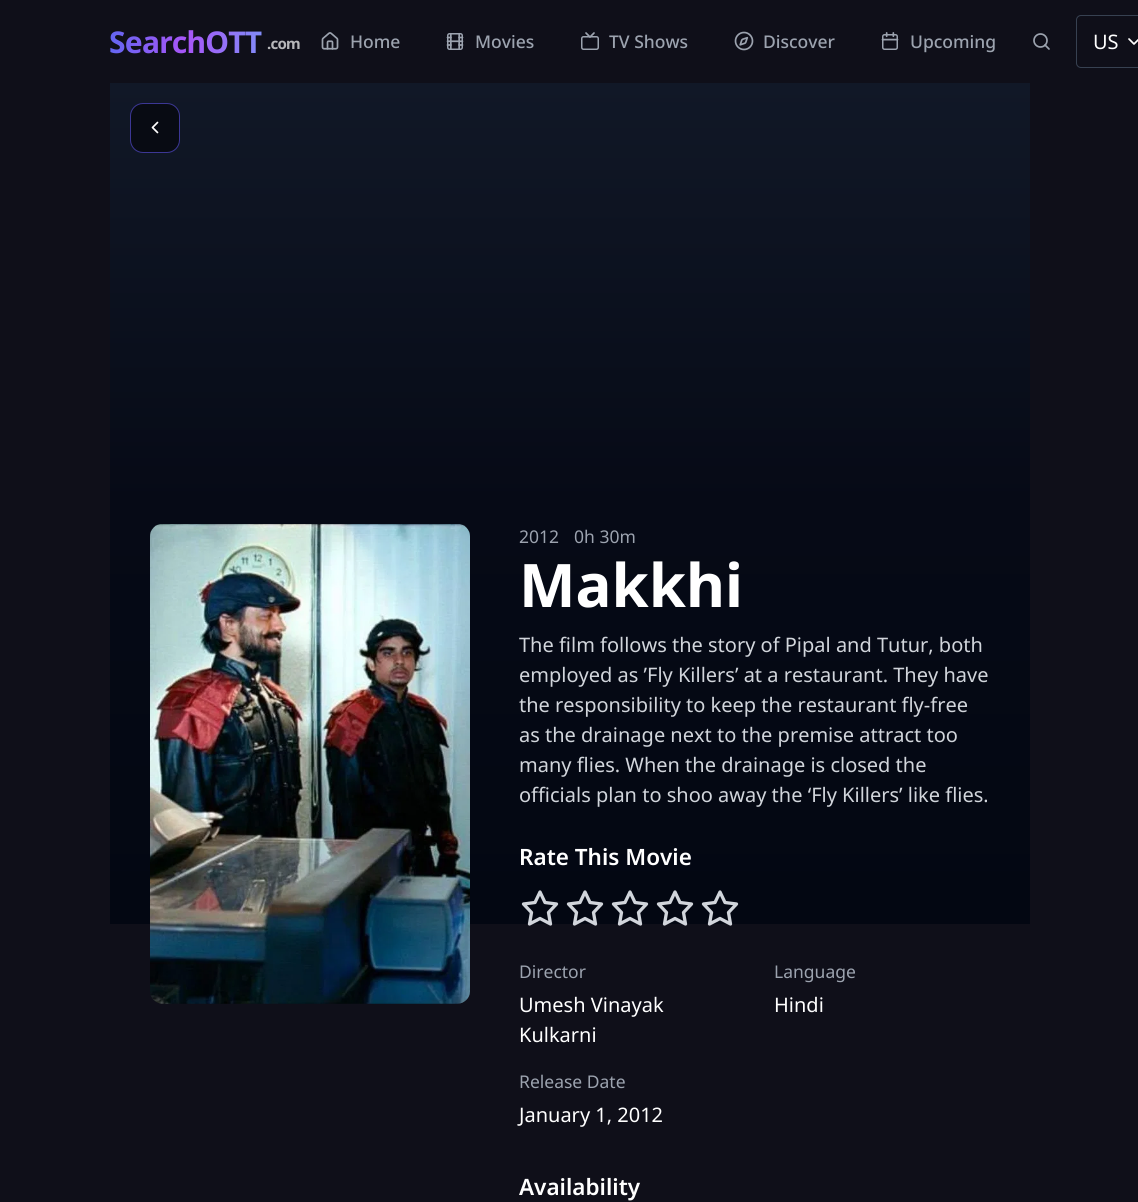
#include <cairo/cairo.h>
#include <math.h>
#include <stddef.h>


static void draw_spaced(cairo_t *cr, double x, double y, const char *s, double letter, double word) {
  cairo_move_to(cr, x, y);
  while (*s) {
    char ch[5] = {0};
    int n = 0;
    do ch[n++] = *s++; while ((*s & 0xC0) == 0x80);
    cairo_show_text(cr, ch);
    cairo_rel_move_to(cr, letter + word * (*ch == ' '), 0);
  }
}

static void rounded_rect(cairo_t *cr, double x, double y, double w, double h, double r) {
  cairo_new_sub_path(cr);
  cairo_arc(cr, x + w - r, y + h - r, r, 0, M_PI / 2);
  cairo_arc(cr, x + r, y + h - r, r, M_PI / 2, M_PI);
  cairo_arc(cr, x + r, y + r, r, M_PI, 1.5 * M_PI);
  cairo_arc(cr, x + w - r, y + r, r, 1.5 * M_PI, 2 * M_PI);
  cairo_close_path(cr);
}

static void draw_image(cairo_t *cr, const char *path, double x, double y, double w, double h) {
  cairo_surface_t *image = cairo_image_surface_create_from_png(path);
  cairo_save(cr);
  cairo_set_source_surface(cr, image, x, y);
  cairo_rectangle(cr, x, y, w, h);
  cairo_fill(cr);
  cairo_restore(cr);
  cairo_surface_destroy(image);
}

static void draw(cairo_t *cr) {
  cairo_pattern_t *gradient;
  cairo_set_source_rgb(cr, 15 / 255.0, 15 / 255.0, 25 / 255.0);
  cairo_paint(cr);
  draw_image(cr, "images/1.png", 321, 32, 18, 18);
  draw_image(cr, "images/2.png", 446, 32, 18, 18);
  rounded_rect(cr, 581.75, 36.75, 16.5, 12.5, 1.75);
  cairo_set_source_rgb(cr, 156 / 255.0, 163 / 255.0, 175 / 255.0);
  cairo_set_line_width(cr, 1.5);
  cairo_stroke(cr);
  cairo_new_path(cr);
  cairo_move_to(cr, 594, 33);
  cairo_line_to(cr, 590, 37);
  cairo_line_to(cr, 586, 33);
  cairo_set_line_width(cr, 1.7);
  cairo_set_line_cap(cr, CAIRO_LINE_CAP_ROUND);
  cairo_set_line_join(cr, CAIRO_LINE_JOIN_ROUND);
  cairo_stroke(cr);
  draw_image(cr, "images/3.png", 734, 31, 20, 20);
  draw_image(cr, "images/4.png", 881, 32, 18, 18);
  cairo_arc(cr, 1040.5, 40.5, 6.5, 0, 2 * M_PI);
  cairo_set_line_cap(cr, CAIRO_LINE_CAP_BUTT);
  cairo_set_line_join(cr, CAIRO_LINE_JOIN_MITER);
  cairo_stroke(cr);
  cairo_new_path(cr);
  cairo_move_to(cr, 1049, 49);
  cairo_line_to(cr, 1045, 45);
  cairo_set_line_cap(cr, CAIRO_LINE_CAP_ROUND);
  cairo_set_line_join(cr, CAIRO_LINE_JOIN_ROUND);
  cairo_stroke(cr);
  rounded_rect(cr, 1076.5, 15.5, 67, 52, 4.5);
  cairo_set_source_rgb(cr, 55 / 255.0, 65 / 255.0, 81 / 255.0);
  cairo_set_line_width(cr, 1);
  cairo_set_line_cap(cr, CAIRO_LINE_CAP_BUTT);
  cairo_set_line_join(cr, CAIRO_LINE_JOIN_MITER);
  cairo_stroke(cr);
  cairo_new_path(cr);
  cairo_move_to(cr, 1129, 39);
  cairo_line_to(cr, 1134, 44);
  cairo_line_to(cr, 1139, 39);
  cairo_set_source_rgb(cr, 1, 1, 1);
  cairo_set_line_width(cr, 1.7);
  cairo_set_line_cap(cr, CAIRO_LINE_CAP_ROUND);
  cairo_set_line_join(cr, CAIRO_LINE_JOIN_ROUND);
  cairo_stroke(cr);
  gradient = cairo_pattern_create_linear(570, 924, 570, 83);
  cairo_pattern_add_color_stop_rgba(gradient, 0, 3 / 255.0, 7 / 255.0, 18 / 255.0, 1);
  cairo_pattern_add_color_stop_rgba(gradient, 0.5, 6 / 255.0, 10 / 255.0, 22 / 255.0, 1);
  cairo_pattern_add_color_stop_rgba(gradient, 1, 17 / 255.0, 24 / 255.0, 39 / 255.0, 1);
  cairo_set_source(cr, gradient);
  cairo_pattern_destroy(gradient);
  cairo_rectangle(cr, 110, 83, 920, 841);
  cairo_fill(cr);
  cairo_set_source_rgb(cr, 8 / 255.0, 11 / 255.0, 19 / 255.0);
  rounded_rect(cr, 130.5, 103.5, 49, 49, 12.5);
  cairo_fill_preserve(cr);
  cairo_set_source_rgb(cr, 60 / 255.0, 55 / 255.0, 149 / 255.0);
  cairo_set_line_width(cr, 1);
  cairo_set_line_cap(cr, CAIRO_LINE_CAP_BUTT);
  cairo_set_line_join(cr, CAIRO_LINE_JOIN_MITER);
  cairo_stroke(cr);
  cairo_new_path(cr);
  cairo_move_to(cr, 157.5, 132.5);
  cairo_line_to(cr, 152.5, 127.5);
  cairo_line_to(cr, 157.5, 122.5);
  cairo_set_source_rgb(cr, 1, 1, 1);
  cairo_set_line_width(cr, 1.7);
  cairo_set_line_cap(cr, CAIRO_LINE_CAP_ROUND);
  cairo_set_line_join(cr, CAIRO_LINE_JOIN_ROUND);
  cairo_stroke(cr);
  draw_image(cr, "images/5.png", 150, 524, 320, 480);
  cairo_new_path(cr);
  cairo_move_to(cr, 540, 892);
  cairo_line_to(cr, 545, 902.5);
  cairo_line_to(cr, 556.5, 904);
  cairo_line_to(cr, 548.5, 912.5);
  cairo_line_to(cr, 550.5, 924);
  cairo_line_to(cr, 540, 918.5);
  cairo_line_to(cr, 529.5, 924);
  cairo_line_to(cr, 531.5, 912.5);
  cairo_line_to(cr, 523.5, 904);
  cairo_line_to(cr, 535, 902.5);
  cairo_close_path(cr);
  cairo_set_source_rgb(cr, 209 / 255.0, 213 / 255.0, 219 / 255.0);
  cairo_set_line_width(cr, 3.3);
  cairo_stroke(cr);
  cairo_new_path(cr);
  cairo_move_to(cr, 585, 892);
  cairo_line_to(cr, 590, 902.5);
  cairo_line_to(cr, 601.5, 904);
  cairo_line_to(cr, 593.5, 912.5);
  cairo_line_to(cr, 595.5, 924);
  cairo_line_to(cr, 585, 918.5);
  cairo_line_to(cr, 574.5, 924);
  cairo_line_to(cr, 576.5, 912.5);
  cairo_line_to(cr, 568.5, 904);
  cairo_line_to(cr, 580, 902.5);
  cairo_close_path(cr);
  cairo_stroke(cr);
  cairo_new_path(cr);
  cairo_move_to(cr, 630, 892);
  cairo_line_to(cr, 635, 902.5);
  cairo_line_to(cr, 646.5, 904);
  cairo_line_to(cr, 638.5, 912.5);
  cairo_line_to(cr, 640.5, 924);
  cairo_line_to(cr, 630, 918.5);
  cairo_line_to(cr, 619.5, 924);
  cairo_line_to(cr, 621.5, 912.5);
  cairo_line_to(cr, 613.5, 904);
  cairo_line_to(cr, 625, 902.5);
  cairo_close_path(cr);
  cairo_stroke(cr);
  cairo_new_path(cr);
  cairo_move_to(cr, 675, 892);
  cairo_line_to(cr, 680, 902.5);
  cairo_line_to(cr, 691.5, 904);
  cairo_line_to(cr, 683.5, 912.5);
  cairo_line_to(cr, 685.5, 924);
  cairo_line_to(cr, 675, 918.5);
  cairo_line_to(cr, 664.5, 924);
  cairo_line_to(cr, 666.5, 912.5);
  cairo_line_to(cr, 658.5, 904);
  cairo_line_to(cr, 670, 902.5);
  cairo_close_path(cr);
  cairo_stroke(cr);
  cairo_new_path(cr);
  cairo_move_to(cr, 720, 892);
  cairo_line_to(cr, 725, 902.5);
  cairo_line_to(cr, 736.5, 904);
  cairo_line_to(cr, 728.5, 912.5);
  cairo_line_to(cr, 730.5, 924);
  cairo_line_to(cr, 720, 918.5);
  cairo_line_to(cr, 709.5, 924);
  cairo_line_to(cr, 711.5, 912.5);
  cairo_line_to(cr, 703.5, 904);
  cairo_line_to(cr, 715, 902.5);
  cairo_close_path(cr);
  cairo_stroke(cr);
  cairo_select_font_face(cr, "Noto Sans", CAIRO_FONT_SLANT_NORMAL, CAIRO_FONT_WEIGHT_BOLD);
  cairo_set_font_size(cr, 30);
  gradient = cairo_pattern_create_linear(109, 41, 262, 41);
  cairo_pattern_add_color_stop_rgba(gradient, 0, 99 / 255.0, 102 / 255.0, 241 / 255.0, 1);
  cairo_pattern_add_color_stop_rgba(gradient, 0.5, 168 / 255.0, 85 / 255.0, 247 / 255.0, 1);
  cairo_pattern_add_color_stop_rgba(gradient, 1, 129 / 255.0, 140 / 255.0, 248 / 255.0, 1);
  cairo_set_source(cr, gradient);
  cairo_pattern_destroy(gradient);
  draw_spaced(cr, 109, 53, "SearchOTT", -0.75, 0);
  cairo_set_font_size(cr, 15);
  cairo_set_source_rgb(cr, 183 / 255.0, 183 / 255.0, 186 / 255.0);
  draw_spaced(cr, 267, 49, ".com", -0.75, 0);
  cairo_select_font_face(cr, "Noto Sans Medium", CAIRO_FONT_SLANT_NORMAL, CAIRO_FONT_WEIGHT_NORMAL);
  cairo_set_font_size(cr, 17.5);
  cairo_set_source_rgb(cr, 156 / 255.0, 163 / 255.0, 175 / 255.0);
  cairo_move_to(cr, 350, 48);
  cairo_show_text(cr, "Home");
  cairo_move_to(cr, 475, 48);
  cairo_show_text(cr, "Movies");
  cairo_move_to(cr, 609, 48);
  cairo_show_text(cr, "TV Shows");
  cairo_move_to(cr, 763, 48);
  cairo_show_text(cr, "Discover");
  cairo_move_to(cr, 910, 48);
  cairo_show_text(cr, "Upcoming");
  cairo_select_font_face(cr, "Noto Sans", CAIRO_FONT_SLANT_NORMAL, CAIRO_FONT_WEIGHT_NORMAL);
  cairo_set_font_size(cr, 20);
  cairo_set_source_rgb(cr, 1, 1, 1);
  cairo_move_to(cr, 1093, 49);
  cairo_show_text(cr, "US");
  cairo_set_font_size(cr, 17.5);
  cairo_set_source_rgb(cr, 156 / 255.0, 163 / 255.0, 175 / 255.0);
  cairo_move_to(cr, 519, 543);
  cairo_show_text(cr, "2012");
  cairo_move_to(cr, 574, 543);
  cairo_show_text(cr, "0h 30m");
  cairo_select_font_face(cr, "Noto Sans", CAIRO_FONT_SLANT_NORMAL, CAIRO_FONT_WEIGHT_BOLD);
  cairo_set_font_size(cr, 60);
  cairo_set_source_rgb(cr, 1, 1, 1);
  cairo_move_to(cr, 519, 607);
  cairo_show_text(cr, "Makkhi");
  cairo_select_font_face(cr, "Noto Sans", CAIRO_FONT_SLANT_NORMAL, CAIRO_FONT_WEIGHT_NORMAL);
  cairo_set_font_size(cr, 20);
  cairo_set_source_rgb(cr, 209 / 255.0, 213 / 255.0, 219 / 255.0);
  cairo_move_to(cr, 519, 652);
  cairo_show_text(cr, "The film follows the story of Pipal and Tutur, both");
  cairo_move_to(cr, 519, 682);
  cairo_show_text(cr, "employed as ’Fly Killers’ at a restaurant. They have");
  cairo_move_to(cr, 519, 712);
  cairo_show_text(cr, "the responsibility to keep the restaurant fly-free");
  cairo_move_to(cr, 519, 742);
  cairo_show_text(cr, "as the drainage next to the premise attract too");
  cairo_move_to(cr, 519, 772);
  cairo_show_text(cr, "many flies. When the drainage is closed the");
  cairo_move_to(cr, 519, 802);
  cairo_show_text(cr, "officials plan to shoo away the ‘Fly Killers’ like flies.");
  cairo_select_font_face(cr, "Noto Sans SemiBold", CAIRO_FONT_SLANT_NORMAL, CAIRO_FONT_WEIGHT_NORMAL);
  cairo_set_font_size(cr, 22.5);
  cairo_set_source_rgb(cr, 1, 1, 1);
  cairo_move_to(cr, 519, 865);
  cairo_show_text(cr, "Rate This Movie");
  cairo_select_font_face(cr, "Noto Sans", CAIRO_FONT_SLANT_NORMAL, CAIRO_FONT_WEIGHT_NORMAL);
  cairo_set_font_size(cr, 17.5);
  cairo_set_source_rgb(cr, 156 / 255.0, 163 / 255.0, 175 / 255.0);
  cairo_move_to(cr, 519, 978);
  cairo_show_text(cr, "Director");
  cairo_set_font_size(cr, 20);
  cairo_set_source_rgb(cr, 1, 1, 1);
  cairo_move_to(cr, 519, 1012);
  cairo_show_text(cr, "Umesh Vinayak");
  cairo_move_to(cr, 519, 1042);
  cairo_show_text(cr, "Kulkarni");
  cairo_set_font_size(cr, 17.5);
  cairo_set_source_rgb(cr, 156 / 255.0, 163 / 255.0, 175 / 255.0);
  cairo_move_to(cr, 774, 978);
  cairo_show_text(cr, "Language");
  cairo_set_font_size(cr, 20);
  cairo_set_source_rgb(cr, 1, 1, 1);
  cairo_move_to(cr, 774, 1012);
  cairo_show_text(cr, "Hindi");
  cairo_set_font_size(cr, 17.5);
  cairo_set_source_rgb(cr, 156 / 255.0, 163 / 255.0, 175 / 255.0);
  cairo_move_to(cr, 519, 1088);
  cairo_show_text(cr, "Release Date");
  cairo_set_font_size(cr, 20);
  cairo_set_source_rgb(cr, 1, 1, 1);
  cairo_move_to(cr, 519, 1122);
  cairo_show_text(cr, "January 1, 2012");
  cairo_select_font_face(cr, "Noto Sans SemiBold", CAIRO_FONT_SLANT_NORMAL, CAIRO_FONT_WEIGHT_NORMAL);
  cairo_set_font_size(cr, 22.5);
  cairo_move_to(cr, 519, 1195);
  cairo_show_text(cr, "Availability");
}

int main(void) {
  cairo_surface_t *surface = cairo_image_surface_create(CAIRO_FORMAT_RGB24, 1138, 1202);
  cairo_t *cr = cairo_create(surface);
  cairo_font_options_t *options = cairo_font_options_create();
  cairo_font_options_set_hint_metrics(options, CAIRO_HINT_METRICS_OFF);
  cairo_font_options_set_hint_style(options, CAIRO_HINT_STYLE_NONE);
  cairo_set_font_options(cr, options);
  cairo_set_miter_limit(cr, 4);
  draw(cr);
  cairo_surface_write_to_png(surface, "out.png");
  cairo_font_options_destroy(options);
  cairo_destroy(cr);
  cairo_surface_destroy(surface);
  return 0;
}
